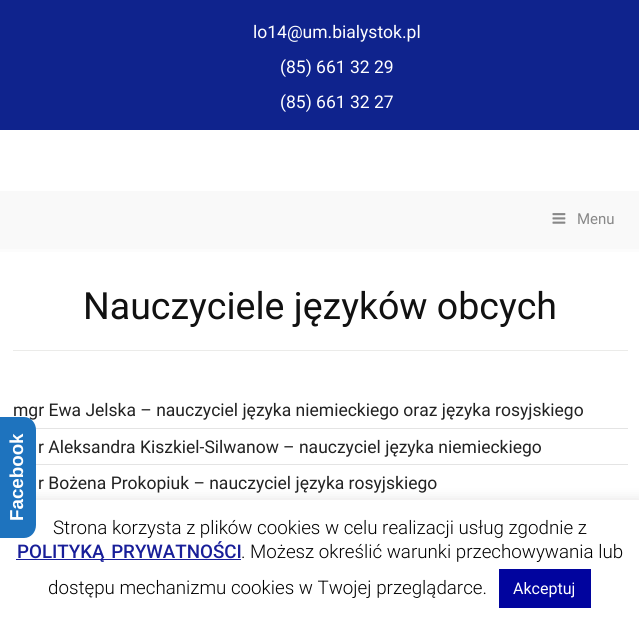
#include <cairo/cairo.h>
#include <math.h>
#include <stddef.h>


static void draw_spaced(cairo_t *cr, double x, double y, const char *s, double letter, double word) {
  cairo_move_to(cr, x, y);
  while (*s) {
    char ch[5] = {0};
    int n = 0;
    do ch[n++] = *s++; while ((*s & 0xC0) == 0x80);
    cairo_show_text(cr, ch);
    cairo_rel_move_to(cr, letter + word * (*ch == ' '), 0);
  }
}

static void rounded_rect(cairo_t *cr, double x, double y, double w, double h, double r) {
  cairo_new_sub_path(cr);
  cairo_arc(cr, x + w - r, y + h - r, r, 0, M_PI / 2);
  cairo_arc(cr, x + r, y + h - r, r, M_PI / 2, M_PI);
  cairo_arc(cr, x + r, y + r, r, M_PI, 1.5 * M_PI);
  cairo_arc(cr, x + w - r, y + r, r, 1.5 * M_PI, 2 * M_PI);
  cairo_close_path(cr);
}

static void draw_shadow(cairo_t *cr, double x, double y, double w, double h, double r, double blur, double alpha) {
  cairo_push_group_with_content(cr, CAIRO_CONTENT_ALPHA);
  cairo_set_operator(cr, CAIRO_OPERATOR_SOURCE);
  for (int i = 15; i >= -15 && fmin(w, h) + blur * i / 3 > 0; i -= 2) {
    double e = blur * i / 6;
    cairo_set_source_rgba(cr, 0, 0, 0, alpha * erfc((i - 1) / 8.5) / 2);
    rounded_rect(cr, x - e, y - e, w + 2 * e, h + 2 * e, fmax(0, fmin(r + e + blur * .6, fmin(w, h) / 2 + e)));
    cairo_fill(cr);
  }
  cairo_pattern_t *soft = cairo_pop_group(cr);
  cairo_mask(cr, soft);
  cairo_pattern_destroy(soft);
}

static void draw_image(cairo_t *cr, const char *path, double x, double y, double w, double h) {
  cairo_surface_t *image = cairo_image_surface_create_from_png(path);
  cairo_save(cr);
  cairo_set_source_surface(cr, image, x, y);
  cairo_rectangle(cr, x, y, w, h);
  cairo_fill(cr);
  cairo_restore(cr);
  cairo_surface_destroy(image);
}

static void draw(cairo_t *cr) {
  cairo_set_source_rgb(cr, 1, 1, 1);
  cairo_paint(cr);
  cairo_set_source_rgb(cr, 15 / 255.0, 35 / 255.0, 141 / 255.0);
  cairo_rectangle(cr, 0, 0, 639, 130);
  cairo_fill(cr);
  cairo_set_source_rgb(cr, 249 / 255.0, 249 / 255.0, 249 / 255.0);
  cairo_rectangle(cr, 0, 191, 639, 58);
  cairo_fill(cr);
  draw_image(cr, "images/1.png", 552, 213, 14, 11);
  cairo_set_source_rgb(cr, 252 / 255.0, 252 / 255.0, 252 / 255.0);
  cairo_rectangle(cr, 0, 249, 639, 3);
  cairo_fill(cr);
  cairo_set_source_rgb(cr, 235 / 255.0, 235 / 255.0, 233 / 255.0);
  cairo_rectangle(cr, 13, 350, 615, 1);
  cairo_fill(cr);
  cairo_set_source_rgb(cr, 228 / 255.0, 228 / 255.0, 228 / 255.0);
  cairo_rectangle(cr, 35, 428, 593, 1);
  cairo_fill(cr);
  cairo_rectangle(cr, 36, 464, 592, 1);
  cairo_fill(cr);
  cairo_set_source_rgb(cr, 172 / 255.0, 171 / 255.0, 171 / 255.0);
  draw_shadow(cr, 0, 499, 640, 122, 0, 6, 0.3);
  cairo_set_source_rgb(cr, 1, 1, 1);
  cairo_rectangle(cr, 0, 500, 639, 122);
  cairo_fill(cr);
  cairo_set_source_rgb(cr, 24 / 255.0, 30 / 255.0, 153 / 255.0);
  cairo_rectangle(cr, 16, 559, 225, 1);
  cairo_fill(cr);
  cairo_set_source_rgb(cr, 1 / 255.0, 4 / 255.0, 158 / 255.0);
  cairo_rectangle(cr, 499, 569, 92, 39);
  cairo_fill(cr);
  cairo_select_font_face(cr, "Roboto", CAIRO_FONT_SLANT_NORMAL, CAIRO_FONT_WEIGHT_NORMAL);
  cairo_set_font_size(cr, 17.5);
  cairo_set_source_rgb(cr, 1, 1, 1);
  cairo_move_to(cr, 253, 38);
  cairo_show_text(cr, "lo14@um.bialystok.pl");
  cairo_move_to(cr, 280, 73);
  cairo_show_text(cr, "(85) 661 32 29");
  cairo_move_to(cr, 280, 108);
  cairo_show_text(cr, "(85) 661 32 27");
  cairo_set_font_size(cr, 15);
  cairo_set_source_rgb(cr, 136 / 255.0, 136 / 255.0, 136 / 255.0);
  cairo_move_to(cr, 577, 224);
  cairo_show_text(cr, "Menu");
  cairo_set_font_size(cr, 37.5);
  cairo_set_source_rgb(cr, 17 / 255.0, 17 / 255.0, 17 / 255.0);
  cairo_move_to(cr, 83, 319);
  cairo_show_text(cr, "Nauczyciele języków obcych");
  cairo_set_font_size(cr, 17.5);
  cairo_set_source_rgb(cr, 34 / 255.0, 34 / 255.0, 34 / 255.0);
  cairo_move_to(cr, 13, 416);
  cairo_show_text(cr, "mgr Ewa Jelska – nauczyciel języka niemieckiego oraz języka rosyjskiego");
  cairo_move_to(cr, 38, 453);
  cairo_show_text(cr, "r Aleksandra Kiszkiel-Silwanow – nauczyciel języka niemieckiego");
  cairo_move_to(cr, 38, 489);
  cairo_show_text(cr, "r Bożena Prokopiuk – nauczyciel języka rosyjskiego");
  cairo_set_source_rgb(cr, 30 / 255.0, 115 / 255.0, 190 / 255.0);
  cairo_new_path(cr);
  cairo_move_to(cr, -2, 538);
  cairo_line_to(cr, -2, 417);
  cairo_line_to(cr, 24, 417);
  cairo_curve_to(cr, 31, 417, 36, 423, 36, 430);
  cairo_line_to(cr, 36, 525);
  cairo_curve_to(cr, 36, 532, 31, 538, 24, 538);
  cairo_close_path(cr);
  cairo_fill(cr);
  cairo_select_font_face(cr, "Liberation Sans", CAIRO_FONT_SLANT_NORMAL, CAIRO_FONT_WEIGHT_BOLD);
  cairo_set_font_size(cr, 18.75);
  cairo_set_source_rgb(cr, 1, 1, 1);
  cairo_save(cr);
  cairo_translate(cr, 23, 521);
  cairo_rotate(cr, -90 * M_PI / 180);
  cairo_move_to(cr, 0, 0);
  cairo_show_text(cr, "Facebook");
  cairo_restore(cr);
  cairo_select_font_face(cr, "Roboto Light", CAIRO_FONT_SLANT_NORMAL, CAIRO_FONT_WEIGHT_NORMAL);
  cairo_set_source_rgb(cr, 0, 0, 0);
  cairo_move_to(cr, 53, 534);
  cairo_show_text(cr, "Strona korzysta z plików cookies w celu realizacji usług zgodnie z");
  cairo_select_font_face(cr, "Roboto Medium", CAIRO_FONT_SLANT_NORMAL, CAIRO_FONT_WEIGHT_NORMAL);
  cairo_set_source_rgb(cr, 24 / 255.0, 30 / 255.0, 153 / 255.0);
  draw_spaced(cr, 17, 558, "POLITYKĄ PRYWATNOŚCI", 0, 2);
  cairo_select_font_face(cr, "Roboto Light", CAIRO_FONT_SLANT_NORMAL, CAIRO_FONT_WEIGHT_NORMAL);
  cairo_set_source_rgb(cr, 0, 0, 0);
  cairo_move_to(cr, 241, 558);
  cairo_show_text(cr, ". Możesz określić warunki przechowywania lub");
  cairo_move_to(cr, 48, 594);
  cairo_show_text(cr, "dostępu mechanizmu cookies w Twojej przeglądarce.");
  cairo_select_font_face(cr, "Roboto", CAIRO_FONT_SLANT_NORMAL, CAIRO_FONT_WEIGHT_NORMAL);
  cairo_set_font_size(cr, 16);
  cairo_set_source_rgb(cr, 1, 1, 1);
  cairo_move_to(cr, 513, 594);
  cairo_show_text(cr, "Akceptuj");
}

int main(void) {
  cairo_surface_t *surface = cairo_image_surface_create(CAIRO_FORMAT_RGB24, 639, 622);
  cairo_t *cr = cairo_create(surface);
  cairo_font_options_t *options = cairo_font_options_create();
  cairo_font_options_set_hint_metrics(options, CAIRO_HINT_METRICS_OFF);
  cairo_font_options_set_hint_style(options, CAIRO_HINT_STYLE_NONE);
  cairo_set_font_options(cr, options);
  cairo_set_miter_limit(cr, 4);
  draw(cr);
  cairo_surface_write_to_png(surface, "out.png");
  cairo_font_options_destroy(options);
  cairo_destroy(cr);
  cairo_surface_destroy(surface);
  return 0;
}
